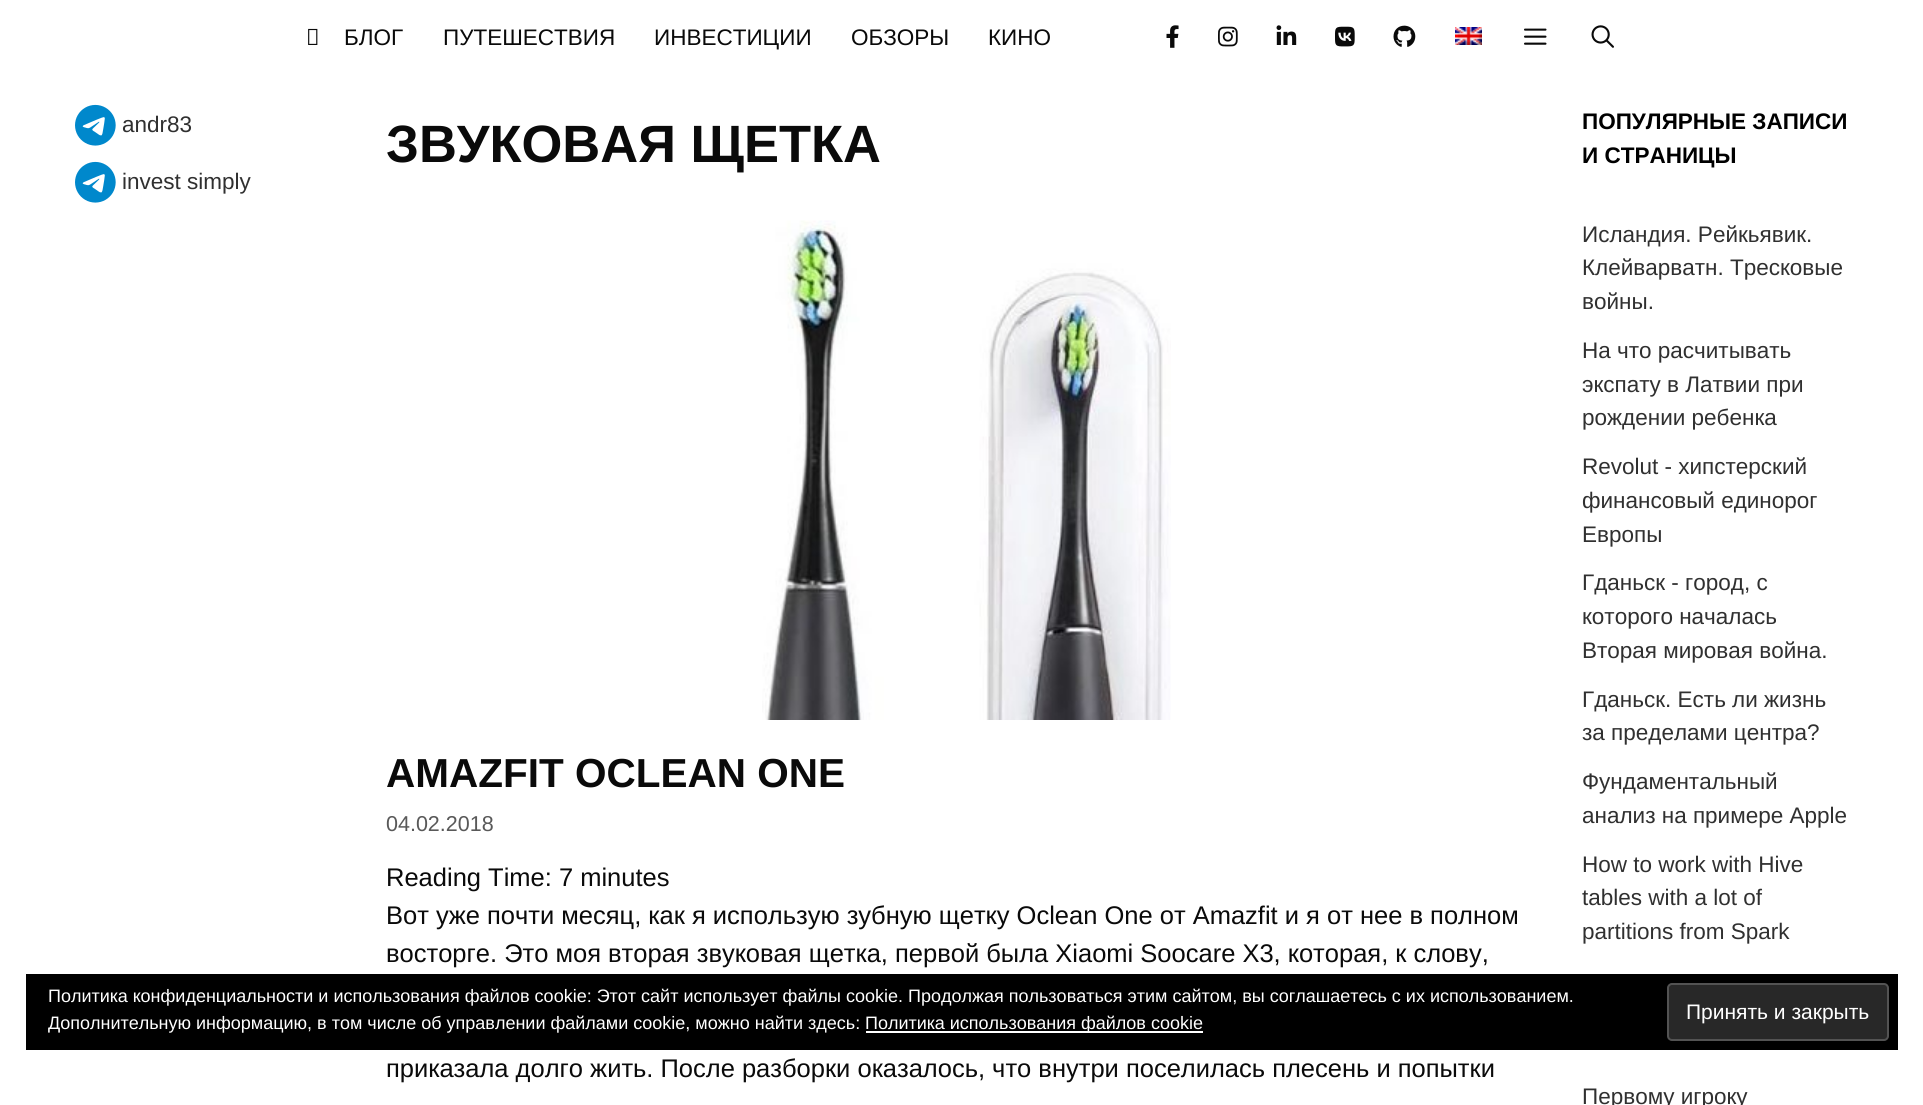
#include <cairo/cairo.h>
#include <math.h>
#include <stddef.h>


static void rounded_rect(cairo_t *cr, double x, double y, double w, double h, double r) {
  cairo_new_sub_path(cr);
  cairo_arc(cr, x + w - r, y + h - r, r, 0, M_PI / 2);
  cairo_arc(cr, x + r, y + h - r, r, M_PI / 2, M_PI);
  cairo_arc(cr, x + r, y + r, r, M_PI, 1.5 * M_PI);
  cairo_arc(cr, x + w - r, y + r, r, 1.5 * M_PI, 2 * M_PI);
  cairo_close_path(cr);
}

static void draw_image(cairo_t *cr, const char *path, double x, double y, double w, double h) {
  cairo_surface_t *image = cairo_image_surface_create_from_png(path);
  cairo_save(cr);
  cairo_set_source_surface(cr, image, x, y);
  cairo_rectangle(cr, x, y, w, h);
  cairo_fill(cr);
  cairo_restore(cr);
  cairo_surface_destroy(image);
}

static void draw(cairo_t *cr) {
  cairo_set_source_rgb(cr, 1, 1, 1);
  cairo_paint(cr);
  draw_image(cr, "images/1.png", 308, 28, 10, 17);
  draw_image(cr, "images/2.png", 1166, 25, 13, 23);
  draw_image(cr, "images/3.png", 1218, 26, 20, 21);
  draw_image(cr, "images/4.png", 1276, 25, 21, 20);
  draw_image(cr, "images/5.png", 1335, 26, 20, 21);
  draw_image(cr, "images/6.png", 1393, 25, 23, 22);
  draw_image(cr, "images/7.png", 1455, 27, 27, 18);
  draw_image(cr, "images/8.png", 1524, 28, 23, 17);
  draw_image(cr, "images/9.png", 1591, 25, 23, 23);
  draw_image(cr, "images/10.png", 75, 104, 41, 42);
  draw_image(cr, "images/10.png", 75, 161, 41, 42);
  draw_image(cr, "images/11.png", 762, 220, 409, 500);
  cairo_set_source_rgb(cr, 0, 0, 0);
  cairo_rectangle(cr, 26, 974, 1872, 76);
  cairo_fill(cr);
  cairo_set_source_rgb(cr, 1, 1, 1);
  cairo_rectangle(cr, 866, 1031, 337, 2);
  cairo_fill(cr);
  cairo_set_source_rgb(cr, 40 / 255.0, 40 / 255.0, 40 / 255.0);
  rounded_rect(cr, 1668, 984, 220, 56, 4);
  cairo_fill_preserve(cr);
  cairo_set_source_rgb(cr, 83 / 255.0, 83 / 255.0, 83 / 255.0);
  cairo_stroke(cr);
  cairo_select_font_face(cr, "Arimo", CAIRO_FONT_SLANT_NORMAL, CAIRO_FONT_WEIGHT_NORMAL);
  cairo_set_font_size(cr, 22.5);
  cairo_set_source_rgb(cr, 10 / 255.0, 10 / 255.0, 10 / 255.0);
  cairo_move_to(cr, 344, 45);
  cairo_show_text(cr, "БЛОГ");
  cairo_move_to(cr, 443, 45);
  cairo_show_text(cr, "ПУТЕШЕСТВИЯ");
  cairo_move_to(cr, 654, 45);
  cairo_show_text(cr, "ИНВЕСТИЦИИ");
  cairo_move_to(cr, 851, 45);
  cairo_show_text(cr, "ОБЗОРЫ");
  cairo_move_to(cr, 988, 45);
  cairo_show_text(cr, "КИНО");
  cairo_set_source_rgb(cr, 48 / 255.0, 48 / 255.0, 48 / 255.0);
  cairo_move_to(cr, 122, 132);
  cairo_show_text(cr, "andr83");
  cairo_move_to(cr, 122, 189);
  cairo_show_text(cr, "invest simply");
  cairo_select_font_face(cr, "Arimo", CAIRO_FONT_SLANT_NORMAL, CAIRO_FONT_WEIGHT_BOLD);
  cairo_set_font_size(cr, 52.5);
  cairo_set_source_rgb(cr, 10 / 255.0, 10 / 255.0, 10 / 255.0);
  cairo_move_to(cr, 386, 162);
  cairo_show_text(cr, "ЗВУКОВАЯ ЩЕТКА");
  cairo_set_font_size(cr, 40.5);
  cairo_move_to(cr, 386, 787);
  cairo_show_text(cr, "AMAZFIT OCLEAN ONE");
  cairo_select_font_face(cr, "Arimo", CAIRO_FONT_SLANT_NORMAL, CAIRO_FONT_WEIGHT_NORMAL);
  cairo_set_font_size(cr, 21.5);
  cairo_set_source_rgb(cr, 89 / 255.0, 89 / 255.0, 89 / 255.0);
  cairo_move_to(cr, 386, 831);
  cairo_show_text(cr, "04.02.2018");
  cairo_set_font_size(cr, 25.5);
  cairo_set_source_rgb(cr, 10 / 255.0, 10 / 255.0, 10 / 255.0);
  cairo_move_to(cr, 386, 886);
  cairo_show_text(cr, "Reading Time: 7 minutes");
  cairo_move_to(cr, 386, 924);
  cairo_show_text(cr, "Вот уже почти месяц, как я использую зубную щетку Oclean One от Amazfit и я от нее в полном");
  cairo_move_to(cr, 386, 962);
  cairo_show_text(cr, "восторге. Это моя вторая звуковая щетка, первой была Xiaomi Soocare X3, которая, к слову,");
  cairo_move_to(cr, 386, 1077);
  cairo_show_text(cr, "приказала долго жить. После разборки оказалось, что внутри поселилась плесень и попытки");
  cairo_select_font_face(cr, "Arimo", CAIRO_FONT_SLANT_NORMAL, CAIRO_FONT_WEIGHT_BOLD);
  cairo_set_font_size(cr, 22.5);
  cairo_set_source_rgb(cr, 0, 0, 0);
  cairo_move_to(cr, 1582, 129);
  cairo_show_text(cr, "ПОПУЛЯРНЫЕ ЗАПИСИ");
  cairo_move_to(cr, 1582, 163);
  cairo_show_text(cr, "И СТРАНИЦЫ");
  cairo_select_font_face(cr, "Arimo", CAIRO_FONT_SLANT_NORMAL, CAIRO_FONT_WEIGHT_NORMAL);
  cairo_set_source_rgb(cr, 48 / 255.0, 48 / 255.0, 48 / 255.0);
  cairo_move_to(cr, 1582, 242);
  cairo_show_text(cr, "Исландия. Рейкьявик.");
  cairo_move_to(cr, 1582, 275);
  cairo_show_text(cr, "Клейварватн. Тресковые");
  cairo_move_to(cr, 1582, 309);
  cairo_show_text(cr, "войны.");
  cairo_move_to(cr, 1582, 358);
  cairo_show_text(cr, "На что расчитывать");
  cairo_move_to(cr, 1582, 392);
  cairo_show_text(cr, "экспату в Латвии при");
  cairo_move_to(cr, 1582, 425);
  cairo_show_text(cr, "рождении ребенка");
  cairo_move_to(cr, 1582, 474);
  cairo_show_text(cr, "Revolut - хипстерский");
  cairo_move_to(cr, 1582, 508);
  cairo_show_text(cr, "финансовый единорог");
  cairo_move_to(cr, 1582, 542);
  cairo_show_text(cr, "Европы");
  cairo_move_to(cr, 1582, 590);
  cairo_show_text(cr, "Гданьск - город, с");
  cairo_move_to(cr, 1582, 624);
  cairo_show_text(cr, "которого началась");
  cairo_move_to(cr, 1582, 658);
  cairo_show_text(cr, "Вторая мировая война.");
  cairo_move_to(cr, 1582, 707);
  cairo_show_text(cr, "Гданьск. Есть ли жизнь");
  cairo_move_to(cr, 1582, 740);
  cairo_show_text(cr, "за пределами центра?");
  cairo_move_to(cr, 1582, 789);
  cairo_show_text(cr, "Фундаментальный");
  cairo_move_to(cr, 1582, 823);
  cairo_show_text(cr, "анализ на примере Apple");
  cairo_move_to(cr, 1582, 872);
  cairo_show_text(cr, "How to work with Hive");
  cairo_move_to(cr, 1582, 905);
  cairo_show_text(cr, "tables with a lot of");
  cairo_move_to(cr, 1582, 939);
  cairo_show_text(cr, "partitions from Spark");
  cairo_move_to(cr, 1582, 1104);
  cairo_show_text(cr, "Первому игроку");
  cairo_set_font_size(cr, 18);
  cairo_set_source_rgb(cr, 1, 1, 1);
  cairo_move_to(cr, 48, 1002);
  cairo_show_text(cr, "Политика конфиденциальности и использования файлов сookie: Этот сайт использует файлы cookie. Продолжая пользоваться этим сайтом, вы соглашаетесь с их использованием.");
  cairo_move_to(cr, 48, 1029);
  cairo_show_text(cr, "Дополнительную информацию, в том числе об управлении файлами cookie, можно найти здесь:");
  cairo_move_to(cr, 865, 1029);
  cairo_show_text(cr, "Политика использования файлов cookie");
  cairo_set_font_size(cr, 21);
  cairo_move_to(cr, 1686, 1019);
  cairo_show_text(cr, "Принять и закрыть");
}

int main(void) {
  cairo_surface_t *surface = cairo_image_surface_create(CAIRO_FORMAT_RGB24, 1923, 1105);
  cairo_t *cr = cairo_create(surface);
  cairo_font_options_t *options = cairo_font_options_create();
  cairo_font_options_set_hint_metrics(options, CAIRO_HINT_METRICS_OFF);
  cairo_font_options_set_hint_style(options, CAIRO_HINT_STYLE_NONE);
  cairo_set_font_options(cr, options);
  cairo_set_miter_limit(cr, 4);
  draw(cr);
  cairo_surface_write_to_png(surface, "out.png");
  cairo_font_options_destroy(options);
  cairo_destroy(cr);
  cairo_surface_destroy(surface);
  return 0;
}
